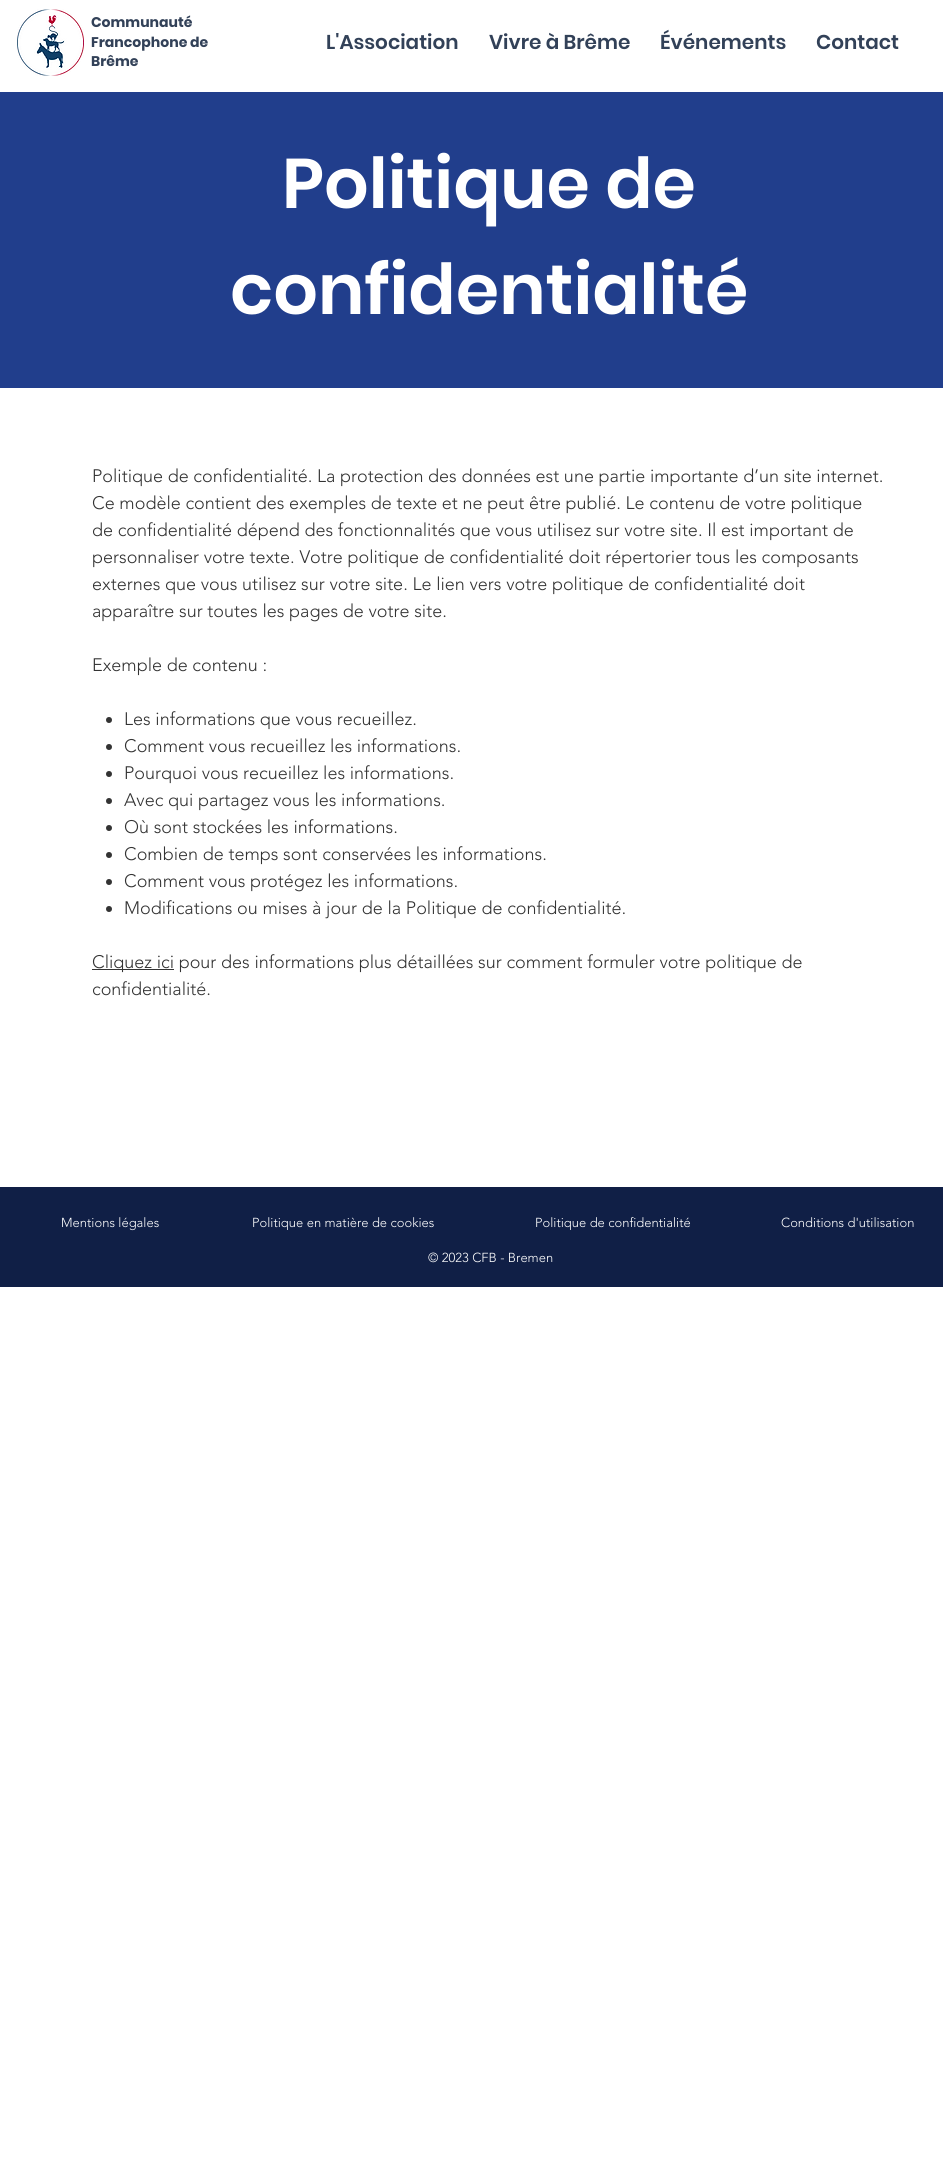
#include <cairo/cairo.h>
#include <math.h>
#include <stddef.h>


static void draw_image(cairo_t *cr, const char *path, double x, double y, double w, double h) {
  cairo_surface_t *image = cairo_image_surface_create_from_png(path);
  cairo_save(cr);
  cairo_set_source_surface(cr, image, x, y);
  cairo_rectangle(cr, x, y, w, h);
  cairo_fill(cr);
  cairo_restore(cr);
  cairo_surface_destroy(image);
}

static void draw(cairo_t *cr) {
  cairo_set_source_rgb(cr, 1, 1, 1);
  cairo_paint(cr);
  draw_image(cr, "images/1.png", 17, 9, 67, 67);
  cairo_set_source_rgb(cr, 33 / 255.0, 62 / 255.0, 140 / 255.0);
  cairo_rectangle(cr, 0, 92, 943, 296);
  cairo_fill(cr);
  cairo_set_source_rgb(cr, 51 / 255.0, 51 / 255.0, 51 / 255.0);
  cairo_arc(cr, 109, 720, 3, 0, 2 * M_PI);
  cairo_fill(cr);
  cairo_arc(cr, 109, 747, 3, 0, 2 * M_PI);
  cairo_fill(cr);
  cairo_arc(cr, 109, 774, 3, 0, 2 * M_PI);
  cairo_fill(cr);
  cairo_arc(cr, 109, 801, 3, 0, 2 * M_PI);
  cairo_fill(cr);
  cairo_arc(cr, 109, 828, 3, 0, 2 * M_PI);
  cairo_fill(cr);
  cairo_arc(cr, 109, 855, 3, 0, 2 * M_PI);
  cairo_fill(cr);
  cairo_arc(cr, 109, 882, 3, 0, 2 * M_PI);
  cairo_fill(cr);
  cairo_arc(cr, 109, 909, 3, 0, 2 * M_PI);
  cairo_fill(cr);
  cairo_rectangle(cr, 92, 969, 82, 1);
  cairo_fill(cr);
  cairo_set_source_rgb(cr, 16 / 255.0, 31 / 255.0, 70 / 255.0);
  cairo_rectangle(cr, 0, 1187, 943, 100);
  cairo_fill(cr);
  cairo_select_font_face(cr, "Poppins", CAIRO_FONT_SLANT_NORMAL, CAIRO_FONT_WEIGHT_BOLD);
  cairo_set_font_size(cr, 14);
  cairo_set_source_rgb(cr, 50 / 255.0, 65 / 255.0, 88 / 255.0);
  cairo_move_to(cr, 91, 27);
  cairo_show_text(cr, "Communauté");
  cairo_move_to(cr, 91, 47);
  cairo_show_text(cr, "Francophone de");
  cairo_move_to(cr, 91, 66);
  cairo_show_text(cr, "Brême");
  cairo_select_font_face(cr, "Poppins SemiBold", CAIRO_FONT_SLANT_NORMAL, CAIRO_FONT_WEIGHT_NORMAL);
  cairo_set_font_size(cr, 20);
  cairo_move_to(cr, 326, 49);
  cairo_show_text(cr, "L'Association");
  cairo_move_to(cr, 489, 49);
  cairo_show_text(cr, "Vivre à Brême");
  cairo_move_to(cr, 660, 49);
  cairo_show_text(cr, "Événements");
  cairo_move_to(cr, 816, 49);
  cairo_show_text(cr, "Contact");
  cairo_set_font_size(cr, 70);
  cairo_set_source_rgb(cr, 1, 1, 1);
  cairo_move_to(cr, 282, 208);
  cairo_show_text(cr, "Politique de");
  cairo_move_to(cr, 230, 314);
  cairo_show_text(cr, "confidentialité");
  cairo_select_font_face(cr, "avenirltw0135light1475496 Light", CAIRO_FONT_SLANT_NORMAL, CAIRO_FONT_WEIGHT_NORMAL);
  cairo_set_font_size(cr, 18);
  cairo_set_source_rgb(cr, 51 / 255.0, 51 / 255.0, 51 / 255.0);
  cairo_move_to(cr, 92, 482);
  cairo_show_text(cr, "Politique de confidentialité. La protection des données est une partie importante d’un site internet.");
  cairo_move_to(cr, 92, 509);
  cairo_show_text(cr, "Ce modèle contient des exemples de texte et ne peut être publié. Le contenu de votre politique");
  cairo_move_to(cr, 92, 536);
  cairo_show_text(cr, "de confidentialité dépend des fonctionnalités que vous utilisez sur votre site. Il est important de");
  cairo_move_to(cr, 92, 563);
  cairo_show_text(cr, "personnaliser votre texte. Votre politique de confidentialité doit répertorier tous les composants");
  cairo_move_to(cr, 92, 590);
  cairo_show_text(cr, "externes que vous utilisez sur votre site. Le lien vers votre politique de confidentialité doit");
  cairo_move_to(cr, 92, 617);
  cairo_show_text(cr, "apparaître sur toutes les pages de votre site.");
  cairo_move_to(cr, 92, 671);
  cairo_show_text(cr, "Exemple de contenu :");
  cairo_move_to(cr, 124, 725);
  cairo_show_text(cr, "Les informations que vous recueillez.");
  cairo_move_to(cr, 124, 752);
  cairo_show_text(cr, "Comment vous recueillez les informations.");
  cairo_move_to(cr, 124, 779);
  cairo_show_text(cr, "Pourquoi vous recueillez les informations.");
  cairo_move_to(cr, 124, 806);
  cairo_show_text(cr, "Avec qui partagez vous les informations.");
  cairo_move_to(cr, 124, 833);
  cairo_show_text(cr, "Où sont stockées les informations.");
  cairo_move_to(cr, 124, 860);
  cairo_show_text(cr, "Combien de temps sont conservées les informations.");
  cairo_move_to(cr, 124, 887);
  cairo_show_text(cr, "Comment vous protégez les informations.");
  cairo_move_to(cr, 124, 914);
  cairo_show_text(cr, "Modifications ou mises à jour de la Politique de confidentialité.");
  cairo_move_to(cr, 92, 968);
  cairo_show_text(cr, "Cliquez ici pour des informations plus détaillées sur comment formuler votre politique de");
  cairo_move_to(cr, 92, 995);
  cairo_show_text(cr, "confidentialité.");
  cairo_set_font_size(cr, 13);
  cairo_set_source_rgb(cr, 1, 1, 1);
  cairo_move_to(cr, 61, 1227);
  cairo_show_text(cr, "Mentions légales");
  cairo_move_to(cr, 252, 1227);
  cairo_show_text(cr, "Politique en matière de cookies");
  cairo_move_to(cr, 535, 1227);
  cairo_show_text(cr, "Politique de confidentialité");
  cairo_move_to(cr, 781, 1227);
  cairo_show_text(cr, "Conditions d'utilisation");
  cairo_move_to(cr, 428, 1262);
  cairo_show_text(cr, "© 2023 CFB - Bremen");
}

int main(void) {
  cairo_surface_t *surface = cairo_image_surface_create(CAIRO_FORMAT_RGB24, 943, 2173);
  cairo_t *cr = cairo_create(surface);
  cairo_font_options_t *options = cairo_font_options_create();
  cairo_font_options_set_hint_metrics(options, CAIRO_HINT_METRICS_OFF);
  cairo_font_options_set_hint_style(options, CAIRO_HINT_STYLE_NONE);
  cairo_set_font_options(cr, options);
  cairo_set_miter_limit(cr, 4);
  draw(cr);
  cairo_surface_write_to_png(surface, "out.png");
  cairo_font_options_destroy(options);
  cairo_destroy(cr);
  cairo_surface_destroy(surface);
  return 0;
}
